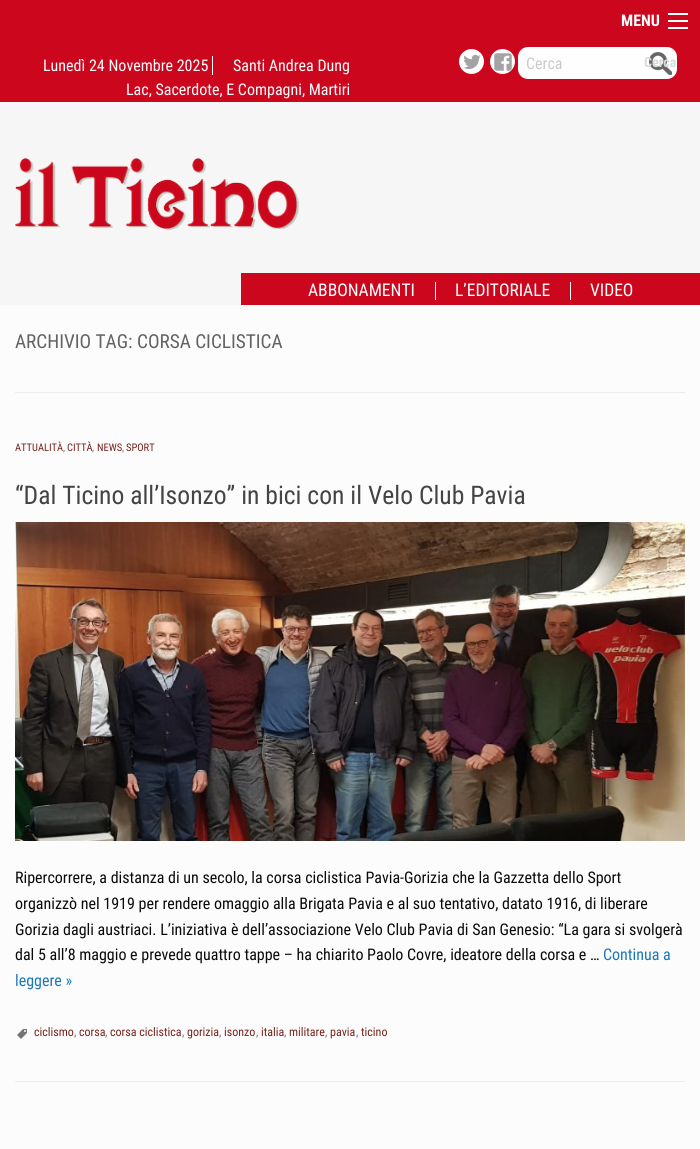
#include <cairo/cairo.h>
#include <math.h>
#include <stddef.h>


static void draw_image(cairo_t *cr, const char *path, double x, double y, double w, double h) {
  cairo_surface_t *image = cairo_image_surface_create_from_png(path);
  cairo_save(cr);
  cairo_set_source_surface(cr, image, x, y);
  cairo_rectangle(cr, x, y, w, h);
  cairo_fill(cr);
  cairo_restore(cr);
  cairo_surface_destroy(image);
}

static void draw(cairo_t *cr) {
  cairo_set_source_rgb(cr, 252 / 255.0, 252 / 255.0, 252 / 255.0);
  cairo_paint(cr);
  cairo_set_source_rgb(cr, 203 / 255.0, 6 / 255.0, 29 / 255.0);
  cairo_rectangle(cr, 0, 0, 700, 102);
  cairo_fill(cr);
  cairo_set_source_rgb(cr, 1, 1, 1);
  cairo_rectangle(cr, 668, 27, 20, 2);
  cairo_fill(cr);
  cairo_rectangle(cr, 668, 20, 20, 2);
  cairo_fill(cr);
  cairo_rectangle(cr, 668, 13, 20, 2);
  cairo_fill(cr);
  cairo_rectangle(cr, 212, 56, 1, 19);
  cairo_fill(cr);
  cairo_arc(cr, 471.5, 61.5, 12.5, 0, 2 * M_PI);
  cairo_fill(cr);
  draw_image(cr, "images/1.png", 463, 54, 18, 16);
  cairo_arc(cr, 502.5, 61.5, 12.5, 0, 2 * M_PI);
  cairo_fill(cr);
  draw_image(cr, "images/2.png", 494, 53, 18, 18);
  cairo_set_source_rgb(cr, 254 / 255.0, 254 / 255.0, 254 / 255.0);
  cairo_new_path(cr);
  cairo_move_to(cr, 528, 47);
  cairo_line_to(cr, 644, 47);
  cairo_line_to(cr, 644, 79);
  cairo_line_to(cr, 528, 79);
  cairo_curve_to(cr, 522.5, 79, 518, 74.5, 518, 69);
  cairo_line_to(cr, 518, 57);
  cairo_curve_to(cr, 518, 51.5, 522.5, 47, 528, 47);
  cairo_close_path(cr);
  cairo_fill(cr);
  cairo_set_source_rgb(cr, 1, 1, 1);
  cairo_new_path(cr);
  cairo_move_to(cr, 644, 47);
  cairo_line_to(cr, 667, 47);
  cairo_curve_to(cr, 672.5, 47, 677, 51.5, 677, 57);
  cairo_line_to(cr, 677, 69);
  cairo_curve_to(cr, 677, 74.5, 672.5, 79, 667, 79);
  cairo_line_to(cr, 644, 79);
  cairo_close_path(cr);
  cairo_fill(cr);
  draw_image(cr, "images/3.png", 649, 52, 23, 23);
  cairo_set_source_rgb(cr, 246 / 255.0, 246 / 255.0, 246 / 255.0);
  cairo_rectangle(cr, 0, 102, 700, 171);
  cairo_fill(cr);
  draw_image(cr, "images/4.png", 15, 158, 284, 72);
  cairo_rectangle(cr, 0, 273, 241, 32);
  cairo_fill(cr);
  cairo_set_source_rgb(cr, 203 / 255.0, 6 / 255.0, 29 / 255.0);
  cairo_rectangle(cr, 241, 273, 459, 32);
  cairo_fill(cr);
  cairo_set_source_rgb(cr, 1, 1, 1);
  cairo_rectangle(cr, 435, 282, 1, 18);
  cairo_fill(cr);
  cairo_rectangle(cr, 570, 282, 1, 18);
  cairo_fill(cr);
  cairo_set_source_rgb(cr, 237 / 255.0, 237 / 255.0, 237 / 255.0);
  cairo_rectangle(cr, 15, 392, 670, 1);
  cairo_fill(cr);
  cairo_rectangle(cr, 15, 1081, 670, 1);
  cairo_fill(cr);
  draw_image(cr, "images/5.png", 15, 522, 670, 319);
  draw_image(cr, "images/6.png", 17, 1029, 10, 10);
  cairo_select_font_face(cr, "Roboto Condensed", CAIRO_FONT_SLANT_NORMAL, CAIRO_FONT_WEIGHT_BOLD);
  cairo_set_font_size(cr, 16);
  cairo_set_source_rgb(cr, 1, 1, 1);
  cairo_move_to(cr, 621, 26);
  cairo_show_text(cr, "MENU");
  cairo_select_font_face(cr, "Roboto Condensed", CAIRO_FONT_SLANT_NORMAL, CAIRO_FONT_WEIGHT_NORMAL);
  cairo_move_to(cr, 43, 71);
  cairo_show_text(cr, "Lunedì 24 Novembre 2025");
  cairo_move_to(cr, 233, 71);
  cairo_show_text(cr, "Santi Andrea Dung");
  cairo_move_to(cr, 126, 95);
  cairo_show_text(cr, "Lac, Sacerdote, E Compagni, Martiri");
  cairo_set_source_rgb(cr, 202 / 255.0, 202 / 255.0, 202 / 255.0);
  cairo_move_to(cr, 526, 69);
  cairo_show_text(cr, "Cerca");
  cairo_select_font_face(cr, "Roboto Condensed", CAIRO_FONT_SLANT_NORMAL, CAIRO_FONT_WEIGHT_BOLD);
  cairo_set_font_size(cr, 14);
  cairo_set_source_rgb(cr, 218 / 255.0, 218 / 255.0, 218 / 255.0);
  cairo_move_to(cr, 644, 67);
  cairo_show_text(cr, "Cerca");
  cairo_select_font_face(cr, "Roboto Condensed", CAIRO_FONT_SLANT_NORMAL, CAIRO_FONT_WEIGHT_NORMAL);
  cairo_set_font_size(cr, 17.5);
  cairo_set_source_rgb(cr, 1, 1, 1);
  cairo_move_to(cr, 308, 296);
  cairo_show_text(cr, "ABBONAMENTI");
  cairo_move_to(cr, 455, 296);
  cairo_show_text(cr, "L’EDITORIALE");
  cairo_move_to(cr, 590, 296);
  cairo_show_text(cr, "VIDEO");
  cairo_set_font_size(cr, 19.25);
  cairo_set_source_rgb(cr, 99 / 255.0, 99 / 255.0, 99 / 255.0);
  cairo_move_to(cr, 15, 348);
  cairo_show_text(cr, "ARCHIVIO TAG: CORSA CICLISTICA");
  cairo_set_font_size(cr, 10.5);
  cairo_set_source_rgb(cr, 119 / 255.0, 34 / 255.0, 27 / 255.0);
  cairo_move_to(cr, 15, 451);
  cairo_show_text(cr, "ATTUALITÀ");
  cairo_set_source_rgb(cr, 117 / 255.0, 117 / 255.0, 117 / 255.0);
  cairo_move_to(cr, 63, 451);
  cairo_show_text(cr, ",");
  cairo_set_source_rgb(cr, 119 / 255.0, 34 / 255.0, 27 / 255.0);
  cairo_move_to(cr, 67, 451);
  cairo_show_text(cr, "CITTÀ");
  cairo_move_to(cr, 97, 451);
  cairo_show_text(cr, "NEWS");
  cairo_move_to(cr, 126, 451);
  cairo_show_text(cr, "SPORT");
  cairo_set_source_rgb(cr, 117 / 255.0, 117 / 255.0, 117 / 255.0);
  cairo_move_to(cr, 92, 451);
  cairo_show_text(cr, ",");
  cairo_move_to(cr, 122, 451);
  cairo_show_text(cr, ",");
  cairo_set_font_size(cr, 25.6);
  cairo_set_source_rgb(cr, 68 / 255.0, 68 / 255.0, 68 / 255.0);
  cairo_move_to(cr, 15, 504);
  cairo_show_text(cr, "“Dal Ticino all’Isonzo” in bici con il Velo Club Pavia");
  cairo_set_font_size(cr, 16);
  cairo_set_source_rgb(cr, 10 / 255.0, 10 / 255.0, 10 / 255.0);
  cairo_move_to(cr, 15, 883);
  cairo_show_text(cr, "Ripercorrere, a distanza di un secolo, la corsa ciclistica Pavia-Gorizia che la Gazzetta dello Sport");
  cairo_move_to(cr, 15, 909);
  cairo_show_text(cr, "organizzò nel 1919 per rendere omaggio alla Brigata Pavia e al suo tentativo, datato 1916, di liberare");
  cairo_move_to(cr, 15, 935);
  cairo_show_text(cr, "Gorizia dagli austriaci. L’iniziativa è dell’associazione Velo Club Pavia di San Genesio: “La gara si svolgerà");
  cairo_move_to(cr, 15, 960);
  cairo_show_text(cr, "dal 5 all’8 maggio e prevede quattro tappe – ha chiarito Paolo Covre, ideatore della corsa e …");
  cairo_set_source_rgb(cr, 23 / 255.0, 121 / 255.0, 186 / 255.0);
  cairo_move_to(cr, 603, 960);
  cairo_show_text(cr, "Continua a");
  cairo_move_to(cr, 15, 986);
  cairo_show_text(cr, "leggere »");
  cairo_set_font_size(cr, 12);
  cairo_set_source_rgb(cr, 119 / 255.0, 34 / 255.0, 27 / 255.0);
  cairo_move_to(cr, 34, 1036);
  cairo_show_text(cr, "ciclismo");
  cairo_set_source_rgb(cr, 117 / 255.0, 117 / 255.0, 117 / 255.0);
  cairo_move_to(cr, 74, 1036);
  cairo_show_text(cr, ",");
  cairo_set_source_rgb(cr, 119 / 255.0, 34 / 255.0, 27 / 255.0);
  cairo_move_to(cr, 79, 1036);
  cairo_show_text(cr, "corsa");
  cairo_set_source_rgb(cr, 117 / 255.0, 117 / 255.0, 117 / 255.0);
  cairo_move_to(cr, 105, 1036);
  cairo_show_text(cr, ",");
  cairo_set_source_rgb(cr, 119 / 255.0, 34 / 255.0, 27 / 255.0);
  cairo_move_to(cr, 110, 1036);
  cairo_show_text(cr, "corsa ciclistica");
  cairo_set_source_rgb(cr, 117 / 255.0, 117 / 255.0, 117 / 255.0);
  cairo_move_to(cr, 182, 1036);
  cairo_show_text(cr, ",");
  cairo_set_source_rgb(cr, 119 / 255.0, 34 / 255.0, 27 / 255.0);
  cairo_move_to(cr, 187, 1036);
  cairo_show_text(cr, "gorizia");
  cairo_set_source_rgb(cr, 117 / 255.0, 117 / 255.0, 117 / 255.0);
  cairo_move_to(cr, 219, 1036);
  cairo_show_text(cr, ",");
  cairo_set_source_rgb(cr, 119 / 255.0, 34 / 255.0, 27 / 255.0);
  cairo_move_to(cr, 224, 1036);
  cairo_show_text(cr, "isonzo");
  cairo_set_source_rgb(cr, 117 / 255.0, 117 / 255.0, 117 / 255.0);
  cairo_move_to(cr, 256, 1036);
  cairo_show_text(cr, ",");
  cairo_set_source_rgb(cr, 119 / 255.0, 34 / 255.0, 27 / 255.0);
  cairo_move_to(cr, 261, 1036);
  cairo_show_text(cr, "italia");
  cairo_set_source_rgb(cr, 117 / 255.0, 117 / 255.0, 117 / 255.0);
  cairo_move_to(cr, 284, 1036);
  cairo_show_text(cr, ",");
  cairo_set_source_rgb(cr, 119 / 255.0, 34 / 255.0, 27 / 255.0);
  cairo_move_to(cr, 289, 1036);
  cairo_show_text(cr, "militare");
  cairo_set_source_rgb(cr, 117 / 255.0, 117 / 255.0, 117 / 255.0);
  cairo_move_to(cr, 325, 1036);
  cairo_show_text(cr, ",");
  cairo_set_source_rgb(cr, 119 / 255.0, 34 / 255.0, 27 / 255.0);
  cairo_move_to(cr, 330, 1036);
  cairo_show_text(cr, "pavia");
  cairo_set_source_rgb(cr, 117 / 255.0, 117 / 255.0, 117 / 255.0);
  cairo_move_to(cr, 356, 1036);
  cairo_show_text(cr, ",");
  cairo_set_source_rgb(cr, 119 / 255.0, 34 / 255.0, 27 / 255.0);
  cairo_move_to(cr, 361, 1036);
  cairo_show_text(cr, "ticino");
}

int main(void) {
  cairo_surface_t *surface = cairo_image_surface_create(CAIRO_FORMAT_RGB24, 700, 1149);
  cairo_t *cr = cairo_create(surface);
  cairo_font_options_t *options = cairo_font_options_create();
  cairo_font_options_set_hint_metrics(options, CAIRO_HINT_METRICS_OFF);
  cairo_font_options_set_hint_style(options, CAIRO_HINT_STYLE_NONE);
  cairo_set_font_options(cr, options);
  cairo_set_miter_limit(cr, 4);
  draw(cr);
  cairo_surface_write_to_png(surface, "out.png");
  cairo_font_options_destroy(options);
  cairo_destroy(cr);
  cairo_surface_destroy(surface);
  return 0;
}
